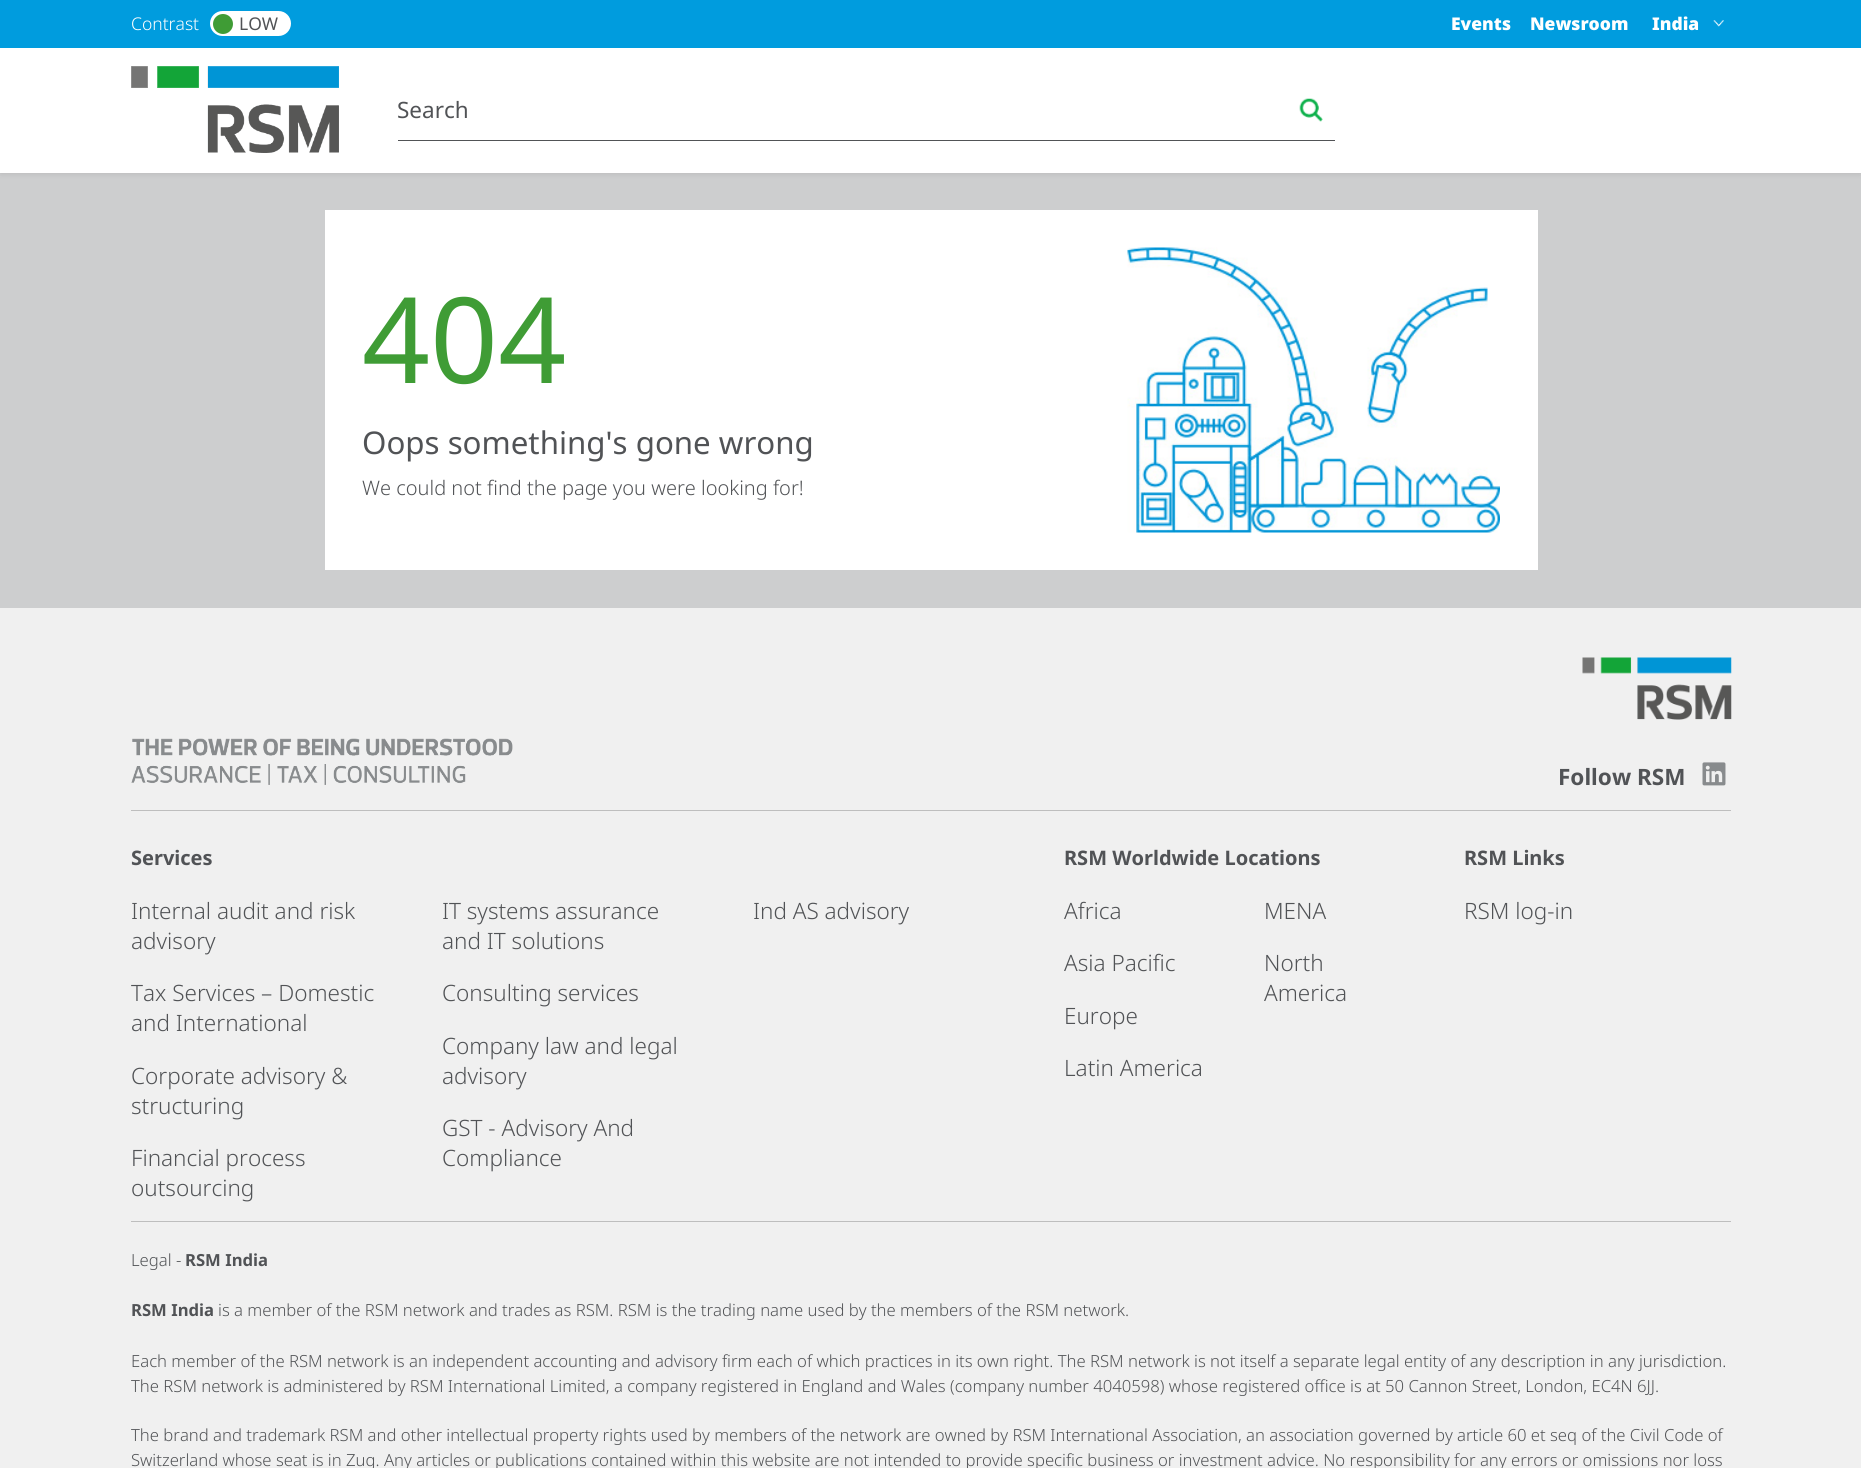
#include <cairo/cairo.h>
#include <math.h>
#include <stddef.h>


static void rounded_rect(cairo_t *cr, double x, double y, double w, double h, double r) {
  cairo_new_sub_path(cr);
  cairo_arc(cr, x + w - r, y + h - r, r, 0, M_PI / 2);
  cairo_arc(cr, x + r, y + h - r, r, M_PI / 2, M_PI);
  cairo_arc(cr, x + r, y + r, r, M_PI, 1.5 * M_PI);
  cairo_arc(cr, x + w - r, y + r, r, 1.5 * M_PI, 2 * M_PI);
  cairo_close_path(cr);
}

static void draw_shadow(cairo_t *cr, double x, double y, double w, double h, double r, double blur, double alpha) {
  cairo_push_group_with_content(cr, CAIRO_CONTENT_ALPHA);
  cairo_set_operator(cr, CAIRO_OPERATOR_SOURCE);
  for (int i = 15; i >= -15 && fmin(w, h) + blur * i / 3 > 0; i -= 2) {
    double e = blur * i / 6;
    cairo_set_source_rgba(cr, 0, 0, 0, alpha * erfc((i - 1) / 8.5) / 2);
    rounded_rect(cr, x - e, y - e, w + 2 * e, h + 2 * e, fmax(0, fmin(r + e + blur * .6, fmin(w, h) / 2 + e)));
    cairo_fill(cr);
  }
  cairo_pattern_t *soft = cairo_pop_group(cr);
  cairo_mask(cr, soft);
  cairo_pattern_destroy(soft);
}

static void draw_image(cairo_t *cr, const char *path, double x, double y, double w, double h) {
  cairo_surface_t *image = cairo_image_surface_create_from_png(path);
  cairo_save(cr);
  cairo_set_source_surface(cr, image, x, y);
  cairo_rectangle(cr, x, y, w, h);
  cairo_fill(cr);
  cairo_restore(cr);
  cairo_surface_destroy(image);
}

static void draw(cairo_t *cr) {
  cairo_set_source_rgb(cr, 205 / 255.0, 206 / 255.0, 207 / 255.0);
  cairo_paint(cr);
  cairo_set_source_rgb(cr, 0, 0, 0);
  draw_shadow(cr, 0, 3, 1861, 172, 0, 2.5, 0.07);
  cairo_set_source_rgb(cr, 0, 156 / 255.0, 222 / 255.0);
  cairo_rectangle(cr, 0, 0, 1861, 48);
  cairo_fill(cr);
  cairo_set_source_rgb(cr, 1, 1, 1);
  rounded_rect(cr, 210, 11, 81, 25, 12.5);
  cairo_fill(cr);
  cairo_set_source_rgb(cr, 63 / 255.0, 156 / 255.0, 53 / 255.0);
  cairo_arc(cr, 223, 24, 10, 0, 2 * M_PI);
  cairo_fill(cr);
  draw_image(cr, "images/1.png", 1713, 20, 11, 7);
  cairo_set_source_rgb(cr, 1, 1, 1);
  cairo_rectangle(cr, 0, 48, 1861, 125);
  cairo_fill(cr);
  draw_image(cr, "images/2.png", 131, 66, 208, 87);
  cairo_set_source_rgb(cr, 81 / 255.0, 83 / 255.0, 86 / 255.0);
  cairo_rectangle(cr, 398, 140, 937, 1);
  cairo_fill(cr);
  draw_image(cr, "images/3.png", 1299, 98, 24, 24);
  cairo_set_source_rgb(cr, 1, 1, 1);
  cairo_rectangle(cr, 325, 210, 1213, 360);
  cairo_fill(cr);
  draw_image(cr, "images/4.png", 1127, 247, 373, 286);
  cairo_set_source_rgb(cr, 240 / 255.0, 240 / 255.0, 240 / 255.0);
  cairo_rectangle(cr, 0, 608, 1861, 860);
  cairo_fill(cr);
  draw_image(cr, "images/5.png", 1582, 657, 150, 63);
  draw_image(cr, "images/6.png", 131, 738, 382, 47);
  draw_image(cr, "images/7.png", 1702, 762, 24, 24);
  cairo_set_source_rgb(cr, 190 / 255.0, 190 / 255.0, 190 / 255.0);
  cairo_rectangle(cr, 131, 810, 1600, 1);
  cairo_fill(cr);
  cairo_rectangle(cr, 131, 1221, 1600, 1);
  cairo_fill(cr);
  cairo_select_font_face(cr, "Noto Sans Light", CAIRO_FONT_SLANT_NORMAL, CAIRO_FONT_WEIGHT_NORMAL);
  cairo_set_font_size(cr, 17.5);
  cairo_set_source_rgb(cr, 1, 1, 1);
  cairo_move_to(cr, 131, 30);
  cairo_show_text(cr, "Contrast");
  cairo_select_font_face(cr, "Noto Sans", CAIRO_FONT_SLANT_NORMAL, CAIRO_FONT_WEIGHT_NORMAL);
  cairo_set_source_rgb(cr, 81 / 255.0, 83 / 255.0, 86 / 255.0);
  cairo_move_to(cr, 239, 30);
  cairo_show_text(cr, "LOW");
  cairo_select_font_face(cr, "Noto Sans Black", CAIRO_FONT_SLANT_NORMAL, CAIRO_FONT_WEIGHT_NORMAL);
  cairo_set_source_rgb(cr, 1, 1, 1);
  cairo_move_to(cr, 1451, 30);
  cairo_show_text(cr, "Events");
  cairo_move_to(cr, 1530, 30);
  cairo_show_text(cr, "Newsroom");
  cairo_move_to(cr, 1652, 30);
  cairo_show_text(cr, "India");
  cairo_select_font_face(cr, "Noto Sans", CAIRO_FONT_SLANT_NORMAL, CAIRO_FONT_WEIGHT_NORMAL);
  cairo_set_font_size(cr, 22.5);
  cairo_set_source_rgb(cr, 81 / 255.0, 83 / 255.0, 86 / 255.0);
  cairo_move_to(cr, 397, 118);
  cairo_show_text(cr, "Search");
  cairo_set_font_size(cr, 119);
  cairo_set_source_rgb(cr, 63 / 255.0, 156 / 255.0, 53 / 255.0);
  cairo_move_to(cr, 362, 383);
  cairo_show_text(cr, "404");
  cairo_set_font_size(cr, 31.25);
  cairo_set_source_rgb(cr, 81 / 255.0, 83 / 255.0, 86 / 255.0);
  cairo_move_to(cr, 362, 454);
  cairo_show_text(cr, "Oops something's gone wrong");
  cairo_select_font_face(cr, "Noto Sans Light", CAIRO_FONT_SLANT_NORMAL, CAIRO_FONT_WEIGHT_NORMAL);
  cairo_set_font_size(cr, 20);
  cairo_move_to(cr, 362, 495);
  cairo_show_text(cr, "We could not find the page you were looking for!");
  cairo_select_font_face(cr, "Noto Sans", CAIRO_FONT_SLANT_NORMAL, CAIRO_FONT_WEIGHT_BOLD);
  cairo_set_font_size(cr, 22.5);
  cairo_move_to(cr, 1558, 785);
  cairo_show_text(cr, "Follow RSM");
  cairo_set_font_size(cr, 20);
  cairo_move_to(cr, 131, 865);
  cairo_show_text(cr, "Services");
  cairo_select_font_face(cr, "Noto Sans Light", CAIRO_FONT_SLANT_NORMAL, CAIRO_FONT_WEIGHT_NORMAL);
  cairo_set_font_size(cr, 22.5);
  cairo_move_to(cr, 131, 919);
  cairo_show_text(cr, "Internal audit and risk");
  cairo_move_to(cr, 131, 949);
  cairo_show_text(cr, "advisory");
  cairo_move_to(cr, 131, 1001);
  cairo_show_text(cr, "Tax Services – Domestic");
  cairo_move_to(cr, 131, 1031);
  cairo_show_text(cr, "and International");
  cairo_move_to(cr, 131, 1084);
  cairo_show_text(cr, "Corporate advisory &");
  cairo_move_to(cr, 131, 1114);
  cairo_show_text(cr, "structuring");
  cairo_move_to(cr, 131, 1166);
  cairo_show_text(cr, "Financial process");
  cairo_move_to(cr, 131, 1196);
  cairo_show_text(cr, "outsourcing");
  cairo_move_to(cr, 442, 919);
  cairo_show_text(cr, "IT systems assurance");
  cairo_move_to(cr, 442, 949);
  cairo_show_text(cr, "and IT solutions");
  cairo_move_to(cr, 442, 1001);
  cairo_show_text(cr, "Consulting services");
  cairo_move_to(cr, 442, 1054);
  cairo_show_text(cr, "Company law and legal");
  cairo_move_to(cr, 442, 1084);
  cairo_show_text(cr, "advisory");
  cairo_move_to(cr, 442, 1136);
  cairo_show_text(cr, "GST - Advisory And");
  cairo_move_to(cr, 442, 1166);
  cairo_show_text(cr, "Compliance");
  cairo_move_to(cr, 753, 919);
  cairo_show_text(cr, "Ind AS advisory");
  cairo_select_font_face(cr, "Noto Sans", CAIRO_FONT_SLANT_NORMAL, CAIRO_FONT_WEIGHT_BOLD);
  cairo_set_font_size(cr, 20);
  cairo_move_to(cr, 1064, 865);
  cairo_show_text(cr, "RSM Worldwide Locations");
  cairo_select_font_face(cr, "Noto Sans Light", CAIRO_FONT_SLANT_NORMAL, CAIRO_FONT_WEIGHT_NORMAL);
  cairo_set_font_size(cr, 22.5);
  cairo_move_to(cr, 1064, 919);
  cairo_show_text(cr, "Africa");
  cairo_move_to(cr, 1064, 971);
  cairo_show_text(cr, "Asia Pacific");
  cairo_move_to(cr, 1064, 1024);
  cairo_show_text(cr, "Europe");
  cairo_move_to(cr, 1064, 1076);
  cairo_show_text(cr, "Latin America");
  cairo_move_to(cr, 1264, 919);
  cairo_show_text(cr, "MENA");
  cairo_move_to(cr, 1264, 971);
  cairo_show_text(cr, "North");
  cairo_move_to(cr, 1264, 1001);
  cairo_show_text(cr, "America");
  cairo_select_font_face(cr, "Noto Sans", CAIRO_FONT_SLANT_NORMAL, CAIRO_FONT_WEIGHT_BOLD);
  cairo_set_font_size(cr, 20);
  cairo_move_to(cr, 1464, 865);
  cairo_show_text(cr, "RSM Links");
  cairo_select_font_face(cr, "Noto Sans Light", CAIRO_FONT_SLANT_NORMAL, CAIRO_FONT_WEIGHT_NORMAL);
  cairo_set_font_size(cr, 22.5);
  cairo_move_to(cr, 1464, 919);
  cairo_show_text(cr, "RSM log-in");
  cairo_set_font_size(cr, 16.67);
  cairo_move_to(cr, 131, 1266);
  cairo_show_text(cr, "Legal -");
  cairo_select_font_face(cr, "Noto Sans", CAIRO_FONT_SLANT_NORMAL, CAIRO_FONT_WEIGHT_BOLD);
  cairo_move_to(cr, 185, 1266);
  cairo_show_text(cr, "RSM India");
  cairo_move_to(cr, 131, 1316);
  cairo_show_text(cr, "RSM India");
  cairo_select_font_face(cr, "Noto Sans Light", CAIRO_FONT_SLANT_NORMAL, CAIRO_FONT_WEIGHT_NORMAL);
  cairo_move_to(cr, 218, 1316);
  cairo_show_text(cr, "is a member of the RSM network and trades as RSM. RSM is the trading name used by the members of the RSM network.");
  cairo_move_to(cr, 131, 1367);
  cairo_show_text(cr, "Each member of the RSM network is an independent accounting and advisory firm each of which practices in its own right. The RSM network is not itself a separate legal entity of any description in any jurisdiction.");
  cairo_move_to(cr, 131, 1392);
  cairo_show_text(cr, "The RSM network is administered by RSM International Limited, a company registered in England and Wales (company number 4040598) whose registered office is at 50 Cannon Street, London, EC4N 6JJ.");
  cairo_move_to(cr, 131, 1441);
  cairo_show_text(cr, "The brand and trademark RSM and other intellectual property rights used by members of the network are owned by RSM International Association, an association governed by article 60 et seq of the Civil Code of");
  cairo_move_to(cr, 131, 1466);
  cairo_show_text(cr, "Switzerland whose seat is in Zug. Any articles or publications contained within this website are not intended to provide specific business or investment advice. No responsibility for any errors or omissions nor loss");
}

int main(void) {
  cairo_surface_t *surface = cairo_image_surface_create(CAIRO_FORMAT_RGB24, 1861, 1468);
  cairo_t *cr = cairo_create(surface);
  cairo_font_options_t *options = cairo_font_options_create();
  cairo_font_options_set_hint_metrics(options, CAIRO_HINT_METRICS_OFF);
  cairo_font_options_set_hint_style(options, CAIRO_HINT_STYLE_NONE);
  cairo_set_font_options(cr, options);
  cairo_set_miter_limit(cr, 4);
  draw(cr);
  cairo_surface_write_to_png(surface, "out.png");
  cairo_font_options_destroy(options);
  cairo_destroy(cr);
  cairo_surface_destroy(surface);
  return 0;
}
